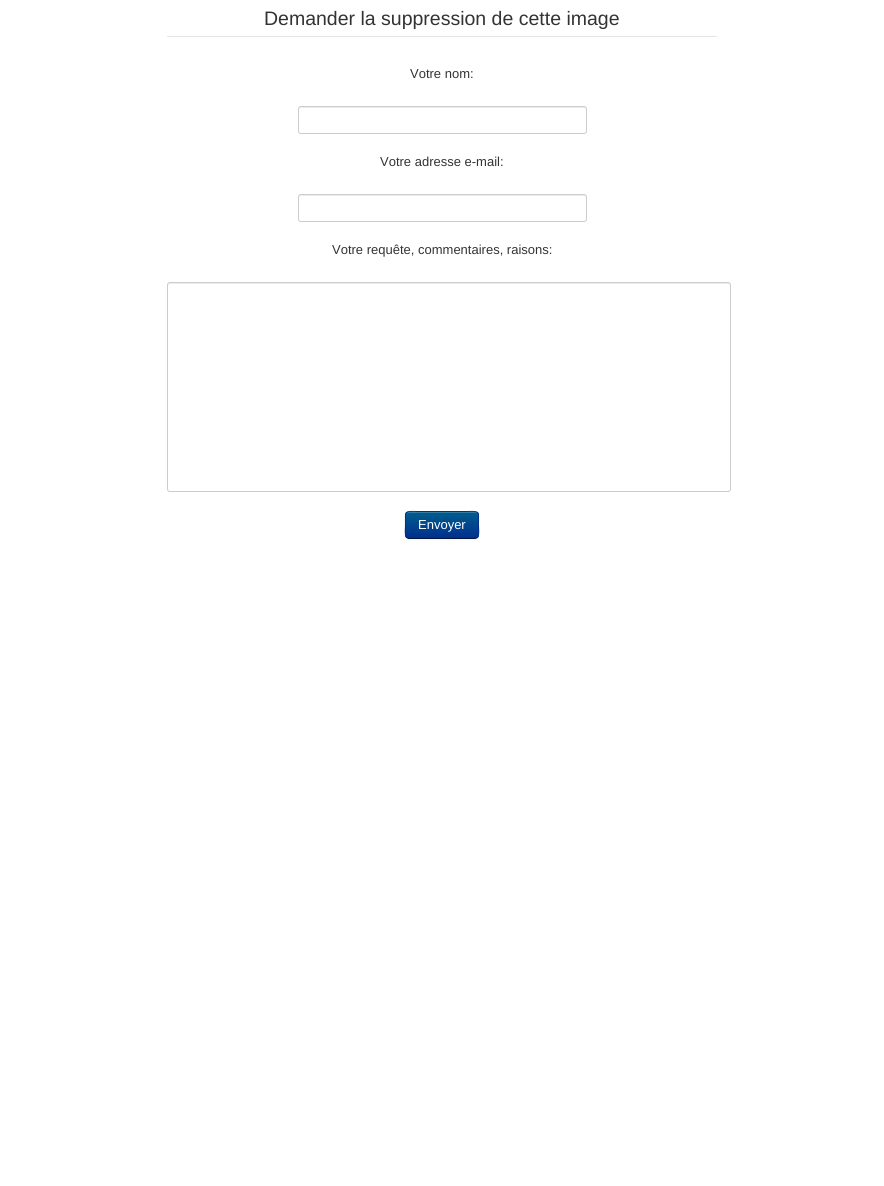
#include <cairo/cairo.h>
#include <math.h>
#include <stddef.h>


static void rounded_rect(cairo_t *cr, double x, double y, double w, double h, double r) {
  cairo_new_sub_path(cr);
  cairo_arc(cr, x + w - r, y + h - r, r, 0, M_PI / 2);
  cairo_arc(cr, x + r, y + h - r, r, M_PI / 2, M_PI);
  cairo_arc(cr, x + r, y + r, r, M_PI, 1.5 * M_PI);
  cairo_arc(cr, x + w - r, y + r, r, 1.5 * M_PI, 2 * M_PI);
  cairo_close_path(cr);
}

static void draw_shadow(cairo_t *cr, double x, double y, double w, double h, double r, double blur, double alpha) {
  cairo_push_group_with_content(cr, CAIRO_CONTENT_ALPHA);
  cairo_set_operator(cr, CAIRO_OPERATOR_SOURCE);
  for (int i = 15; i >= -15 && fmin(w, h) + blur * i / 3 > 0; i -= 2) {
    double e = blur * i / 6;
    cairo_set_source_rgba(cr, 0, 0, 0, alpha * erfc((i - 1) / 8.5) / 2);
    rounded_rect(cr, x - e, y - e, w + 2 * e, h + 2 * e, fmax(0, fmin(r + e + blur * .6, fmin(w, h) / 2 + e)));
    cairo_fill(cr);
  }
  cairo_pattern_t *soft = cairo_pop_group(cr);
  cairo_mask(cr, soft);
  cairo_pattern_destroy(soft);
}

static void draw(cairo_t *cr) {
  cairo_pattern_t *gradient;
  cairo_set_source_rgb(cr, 1, 1, 1);
  cairo_paint(cr);
  cairo_set_source_rgb(cr, 229 / 255.0, 229 / 255.0, 229 / 255.0);
  cairo_rectangle(cr, 167, 36, 550, 1);
  cairo_fill(cr);
  cairo_set_source_rgb(cr, 236 / 255.0, 236 / 255.0, 236 / 255.0);
  cairo_new_path(cr);
  cairo_move_to(cr, 301, 108);
  cairo_line_to(cr, 584, 108);
  cairo_curve_to(cr, 585, 108, 586, 109, 586, 110);
  cairo_curve_to(cr, 586, 109, 586, 107, 584, 107);
  cairo_line_to(cr, 301, 107);
  cairo_curve_to(cr, 299, 107, 299, 109, 299, 110);
  cairo_curve_to(cr, 299, 109, 300, 108, 301, 108);
  cairo_close_path(cr);
  cairo_fill(cr);
  rounded_rect(cr, 298.5, 106.5, 288, 27, 2.5);
  cairo_set_source_rgb(cr, 204 / 255.0, 204 / 255.0, 204 / 255.0);
  cairo_set_line_width(cr, 1);
  cairo_stroke(cr);
  cairo_set_source_rgb(cr, 236 / 255.0, 236 / 255.0, 236 / 255.0);
  cairo_new_path(cr);
  cairo_move_to(cr, 301, 196);
  cairo_line_to(cr, 584, 196);
  cairo_curve_to(cr, 585, 196, 586, 197, 586, 198);
  cairo_curve_to(cr, 586, 197, 586, 195, 584, 195);
  cairo_line_to(cr, 301, 195);
  cairo_curve_to(cr, 299, 195, 299, 197, 299, 198);
  cairo_curve_to(cr, 299, 197, 300, 196, 301, 196);
  cairo_close_path(cr);
  cairo_fill(cr);
  rounded_rect(cr, 298.5, 194.5, 288, 27, 2.5);
  cairo_set_source_rgb(cr, 204 / 255.0, 204 / 255.0, 204 / 255.0);
  cairo_stroke(cr);
  cairo_set_source_rgb(cr, 236 / 255.0, 236 / 255.0, 236 / 255.0);
  cairo_new_path(cr);
  cairo_move_to(cr, 170, 284);
  cairo_line_to(cr, 728, 284);
  cairo_curve_to(cr, 729, 284, 730, 285, 730, 286);
  cairo_curve_to(cr, 730, 285, 730, 283, 728, 283);
  cairo_line_to(cr, 170, 283);
  cairo_line_to(cr, 168, 284);
  cairo_line_to(cr, 168, 286);
  cairo_curve_to(cr, 168, 285, 169, 284, 170, 284);
  cairo_close_path(cr);
  cairo_fill(cr);
  rounded_rect(cr, 167.5, 282.5, 563, 209, 2.5);
  cairo_set_source_rgb(cr, 204 / 255.0, 204 / 255.0, 204 / 255.0);
  cairo_stroke(cr);
  cairo_set_source_rgb(cr, 0, 0, 0);
  draw_shadow(cr, 405, 512, 74, 28, 4, 1, 0.05);
  cairo_save(cr);
  rounded_rect(cr, 405, 511, 74, 28, 4);
  cairo_clip(cr);
  gradient = cairo_pattern_create_linear(442, 512, 442, 538);
  cairo_pattern_add_color_stop_rgba(gradient, 0, 0, 94 / 255.0, 141 / 255.0, 1);
  cairo_pattern_add_color_stop_rgba(gradient, 1, 0, 47 / 255.0, 141 / 255.0, 1);
  cairo_set_source(cr, gradient);
  cairo_pattern_destroy(gradient);
  cairo_rectangle(cr, 405, 512, 74, 26);
  cairo_fill(cr);
  cairo_restore(cr);
  cairo_set_source_rgba(cr, 1, 1, 1, 0.2);
  cairo_new_path(cr);
  cairo_move_to(cr, 409, 513);
  cairo_line_to(cr, 475, 513);
  cairo_curve_to(cr, 477, 513, 478, 514, 478, 516);
  cairo_curve_to(cr, 478, 509, 468, 512, 464, 512);
  cairo_line_to(cr, 420, 512);
  cairo_curve_to(cr, 416, 512, 406, 509, 406, 516);
  cairo_curve_to(cr, 406, 514, 407, 513, 409, 513);
  cairo_close_path(cr);
  cairo_fill(cr);
  cairo_new_path(cr);
  cairo_move_to(cr, 477.5, 537.5);
  cairo_line_to(cr, 475.5, 538.5);
  cairo_line_to(cr, 408.5, 538.5);
  cairo_line_to(cr, 406.5, 537.5);
  cairo_set_source_rgb(cr, 0, 22 / 255.0, 65 / 255.0);
  cairo_stroke(cr);
  cairo_new_path(cr);
  cairo_move_to(cr, 406.5, 537.5);
  cairo_curve_to(cr, 404.5, 535, 405.5, 527.5, 405.5, 525);
  cairo_curve_to(cr, 405.5, 509.5, 403.5, 511.5, 420, 511.5);
  cairo_line_to(cr, 464, 511.5);
  cairo_curve_to(cr, 480.5, 511.5, 478.5, 509.5, 478.5, 525);
  cairo_curve_to(cr, 478.5, 527.5, 479.5, 535, 477.5, 537.5);
  cairo_set_source_rgb(cr, 0, 47 / 255.0, 141 / 255.0);
  cairo_stroke(cr);
  cairo_select_font_face(cr, "Liberation Sans", CAIRO_FONT_SLANT_NORMAL, CAIRO_FONT_WEIGHT_NORMAL);
  cairo_set_font_size(cr, 19.5);
  cairo_set_source_rgb(cr, 51 / 255.0, 51 / 255.0, 51 / 255.0);
  cairo_move_to(cr, 264, 25);
  cairo_show_text(cr, "Demander la suppression de cette image");
  cairo_set_font_size(cr, 13);
  cairo_move_to(cr, 410, 78);
  cairo_show_text(cr, "Votre nom:");
  cairo_move_to(cr, 380, 166);
  cairo_show_text(cr, "Votre adresse e-mail:");
  cairo_move_to(cr, 332, 254);
  cairo_show_text(cr, "Votre requête, commentaires, raisons:");
  cairo_set_source_rgb(cr, 1, 1, 1);
  cairo_move_to(cr, 418, 529);
  cairo_show_text(cr, "Envoyer");
}

int main(void) {
  cairo_surface_t *surface = cairo_image_surface_create(CAIRO_FORMAT_RGB24, 884, 1186);
  cairo_t *cr = cairo_create(surface);
  cairo_font_options_t *options = cairo_font_options_create();
  cairo_font_options_set_hint_metrics(options, CAIRO_HINT_METRICS_OFF);
  cairo_font_options_set_hint_style(options, CAIRO_HINT_STYLE_NONE);
  cairo_set_font_options(cr, options);
  cairo_set_miter_limit(cr, 4);
  draw(cr);
  cairo_surface_write_to_png(surface, "out.png");
  cairo_font_options_destroy(options);
  cairo_destroy(cr);
  cairo_surface_destroy(surface);
  return 0;
}
